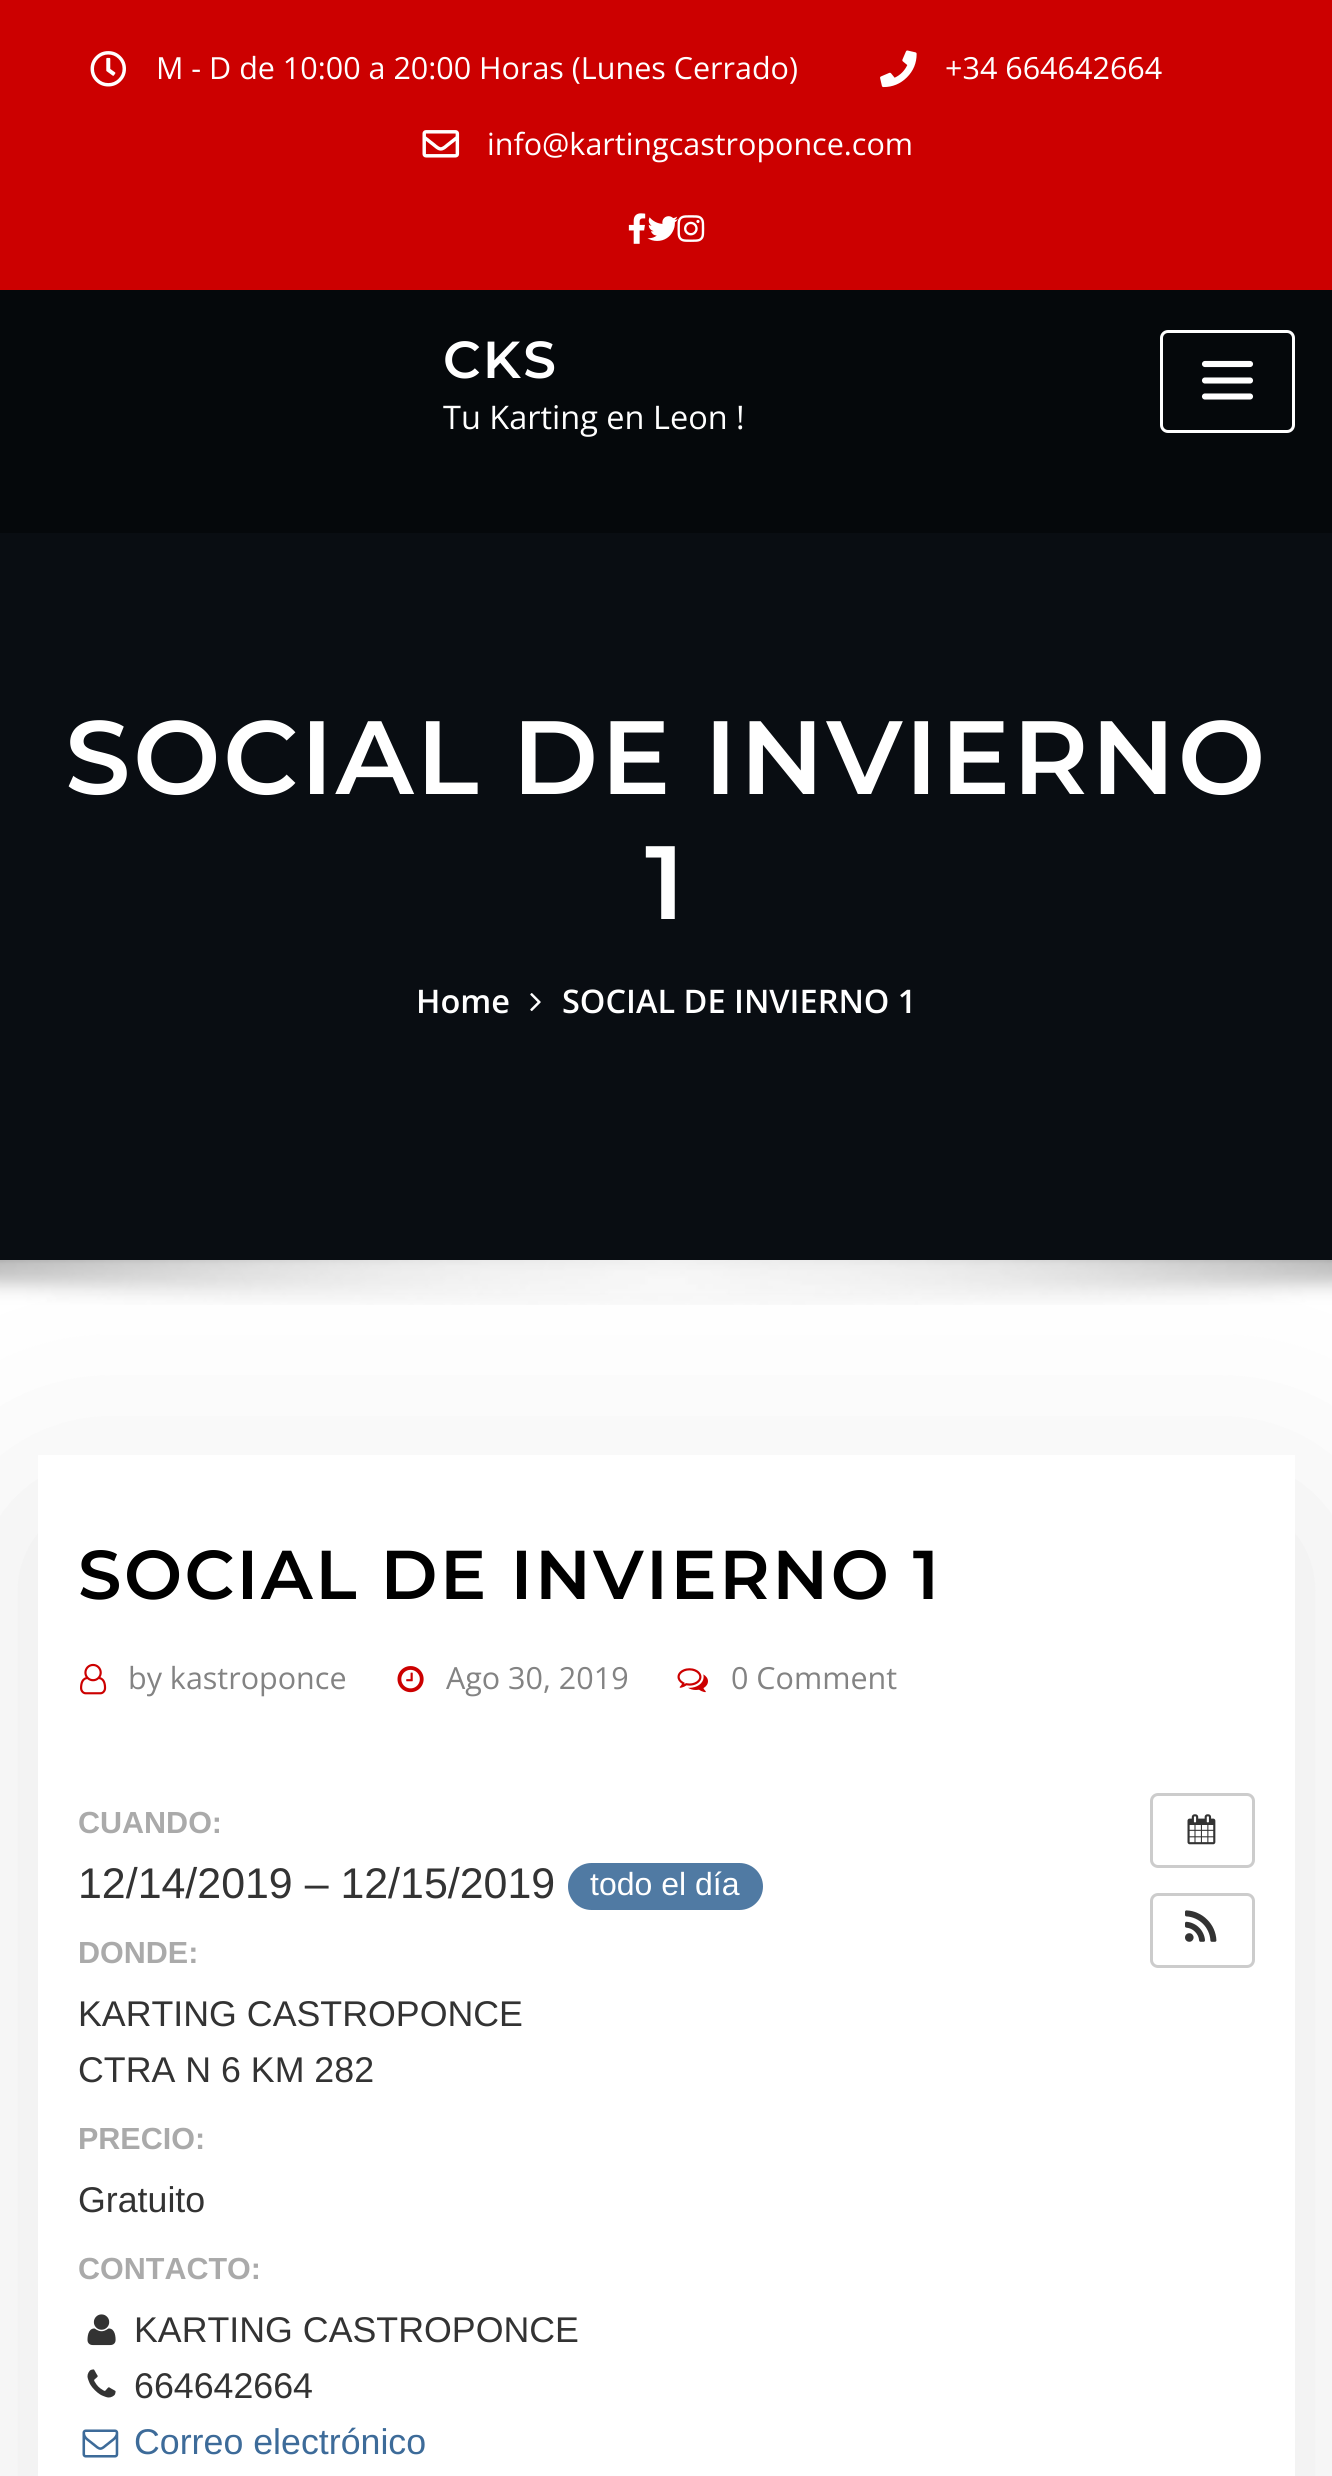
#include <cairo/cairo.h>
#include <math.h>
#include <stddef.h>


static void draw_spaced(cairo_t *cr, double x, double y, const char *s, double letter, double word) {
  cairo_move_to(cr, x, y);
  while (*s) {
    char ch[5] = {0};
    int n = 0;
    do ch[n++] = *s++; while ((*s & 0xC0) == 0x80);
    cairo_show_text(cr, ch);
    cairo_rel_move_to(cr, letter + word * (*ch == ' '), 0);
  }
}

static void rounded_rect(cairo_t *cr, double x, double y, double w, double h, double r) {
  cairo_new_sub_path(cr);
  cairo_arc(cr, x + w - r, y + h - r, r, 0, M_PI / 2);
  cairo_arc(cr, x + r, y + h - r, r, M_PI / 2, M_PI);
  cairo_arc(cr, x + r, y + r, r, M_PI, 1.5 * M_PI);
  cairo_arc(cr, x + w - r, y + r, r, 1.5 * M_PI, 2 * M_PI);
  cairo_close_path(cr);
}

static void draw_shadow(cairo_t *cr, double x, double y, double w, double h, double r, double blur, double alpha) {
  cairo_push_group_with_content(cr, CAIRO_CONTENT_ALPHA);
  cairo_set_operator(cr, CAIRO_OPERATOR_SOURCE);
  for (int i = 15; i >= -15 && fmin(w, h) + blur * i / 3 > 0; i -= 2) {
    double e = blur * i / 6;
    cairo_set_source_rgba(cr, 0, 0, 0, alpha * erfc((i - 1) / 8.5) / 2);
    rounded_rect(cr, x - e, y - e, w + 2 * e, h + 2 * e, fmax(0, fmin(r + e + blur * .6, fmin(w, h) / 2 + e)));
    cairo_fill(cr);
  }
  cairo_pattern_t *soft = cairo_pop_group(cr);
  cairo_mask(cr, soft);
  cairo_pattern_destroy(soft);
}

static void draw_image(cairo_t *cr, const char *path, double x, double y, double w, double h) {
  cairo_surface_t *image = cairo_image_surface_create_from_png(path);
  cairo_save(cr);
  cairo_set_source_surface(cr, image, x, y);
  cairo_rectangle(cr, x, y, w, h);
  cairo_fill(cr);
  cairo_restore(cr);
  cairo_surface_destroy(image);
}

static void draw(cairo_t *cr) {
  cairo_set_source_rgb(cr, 1, 1, 1);
  cairo_paint(cr);
  cairo_set_source_rgb(cr, 204 / 255.0, 0, 0);
  cairo_rectangle(cr, 0, 0, 1332, 290);
  cairo_fill(cr);
  draw_image(cr, "images/1.png", 90, 51, 36, 36);
  draw_image(cr, "images/2.png", 880, 50, 37, 38);
  draw_image(cr, "images/3.png", 422, 130, 38, 28);
  draw_image(cr, "images/4.png", 628, 213, 18, 31);
  draw_image(cr, "images/5.png", 647, 216, 31, 25);
  draw_image(cr, "images/6.png", 677, 215, 28, 27);
  cairo_set_source_rgb(cr, 5 / 255.0, 8 / 255.0, 11 / 255.0);
  cairo_rectangle(cr, 0, 290, 1332, 243);
  cairo_fill(cr);
  rounded_rect(cr, 1161.5, 331.5, 132, 100, 6.5);
  cairo_set_source_rgb(cr, 1, 1, 1);
  cairo_set_line_width(cr, 3);
  cairo_stroke(cr);
  cairo_new_path(cr);
  cairo_move_to(cr, 1205, 364);
  cairo_line_to(cr, 1250, 364);
  cairo_move_to(cr, 1205, 380.5);
  cairo_line_to(cr, 1250, 380.5);
  cairo_move_to(cr, 1205, 396.5);
  cairo_line_to(cr, 1250, 396.5);
  cairo_set_line_width(cr, 6.1);
  cairo_set_line_cap(cr, CAIRO_LINE_CAP_ROUND);
  cairo_stroke(cr);
  cairo_set_source_rgb(cr, 9 / 255.0, 13 / 255.0, 18 / 255.0);
  cairo_rectangle(cr, 0, 533, 1332, 727);
  cairo_fill(cr);
  draw_image(cr, "images/7.png", 530, 993, 11, 19);
  cairo_save(cr);
  cairo_set_fill_rule(cr, CAIRO_FILL_RULE_EVEN_ODD);
  cairo_new_path(cr);
  cairo_move_to(cr, 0, 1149);
  cairo_line_to(cr, 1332, 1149);
  cairo_line_to(cr, 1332, 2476);
  cairo_line_to(cr, 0, 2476);
  cairo_close_path(cr);
  cairo_move_to(cr, 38, 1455);
  cairo_line_to(cr, 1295, 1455);
  cairo_line_to(cr, 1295, 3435);
  cairo_line_to(cr, 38, 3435);
  cairo_close_path(cr);
  cairo_clip(cr);
  cairo_set_source_rgb(cr, 0, 0, 0);
  draw_shadow(cr, 38, 1518, 1257, 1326, 0, 122.5, 0.1);
  cairo_restore(cr);
  draw_image(cr, "images/8.png", 0, 1260, 1332, 45);
  draw_image(cr, "images/9.png", 80, 1663, 27, 32);
  draw_image(cr, "images/10.png", 397, 1666, 27, 27);
  draw_image(cr, "images/11.png", 677, 1668, 31, 25);
  cairo_set_source_rgb(cr, 80 / 255.0, 122 / 255.0, 163 / 255.0);
  rounded_rect(cr, 568, 1863, 195, 47, 23.5);
  cairo_fill(cr);
  draw_image(cr, "images/12.png", 87, 2314, 29, 32);
  draw_image(cr, "images/13.png", 87, 2369, 29, 29);
  draw_image(cr, "images/14.png", 82, 2429, 37, 29);
  rounded_rect(cr, 1151.5, 1794.5, 102, 72, 6.5);
  cairo_set_source_rgb(cr, 204 / 255.0, 204 / 255.0, 204 / 255.0);
  cairo_set_line_width(cr, 3);
  cairo_set_line_cap(cr, CAIRO_LINE_CAP_BUTT);
  cairo_stroke(cr);
  draw_image(cr, "images/15.png", 1187, 1814, 29, 31);
  rounded_rect(cr, 1151.5, 1894.5, 102, 72, 6.5);
  cairo_stroke(cr);
  draw_image(cr, "images/16.png", 1185, 1910, 32, 32);
  cairo_select_font_face(cr, "Open Sans", CAIRO_FONT_SLANT_NORMAL, CAIRO_FONT_WEIGHT_NORMAL);
  cairo_set_font_size(cr, 30.5);
  cairo_set_source_rgb(cr, 1, 1, 1);
  cairo_move_to(cr, 156, 79);
  cairo_show_text(cr, "M - D de 10:00 a 20:00 Horas (Lunes Cerrado)");
  cairo_move_to(cr, 945, 79);
  cairo_show_text(cr, "+34 664642664");
  cairo_move_to(cr, 487, 155);
  cairo_show_text(cr, "info@kartingcastroponce.com");
  cairo_select_font_face(cr, "Montserrat SemiBold", CAIRO_FONT_SLANT_NORMAL, CAIRO_FONT_WEIGHT_NORMAL);
  cairo_set_font_size(cr, 52);
  draw_spaced(cr, 443, 378, "CKS", 2.5, 0);
  cairo_select_font_face(cr, "Open Sans", CAIRO_FONT_SLANT_NORMAL, CAIRO_FONT_WEIGHT_NORMAL);
  cairo_set_font_size(cr, 32.5);
  cairo_move_to(cr, 443, 429);
  cairo_show_text(cr, "Tu Karting en Leon !");
  cairo_select_font_face(cr, "Montserrat SemiBold", CAIRO_FONT_SLANT_NORMAL, CAIRO_FONT_WEIGHT_NORMAL);
  cairo_set_font_size(cr, 104);
  draw_spaced(cr, 65, 794, "SOCIAL DE INVIERNO", 2.5, 0);
  draw_spaced(cr, 645, 919, "1", 2.5, 0);
  cairo_select_font_face(cr, "Open Sans SemiBold", CAIRO_FONT_SLANT_NORMAL, CAIRO_FONT_WEIGHT_NORMAL);
  cairo_set_font_size(cr, 32.5);
  cairo_move_to(cr, 416, 1013);
  cairo_show_text(cr, "Home");
  cairo_move_to(cr, 562, 1013);
  cairo_show_text(cr, "SOCIAL DE INVIERNO 1");
  cairo_select_font_face(cr, "Montserrat SemiBold", CAIRO_FONT_SLANT_NORMAL, CAIRO_FONT_WEIGHT_NORMAL);
  cairo_set_font_size(cr, 69);
  cairo_set_source_rgb(cr, 0, 0, 0);
  draw_spaced(cr, 78, 1599, "SOCIAL DE INVIERNO 1", 2.5, 0);
  cairo_select_font_face(cr, "Open Sans", CAIRO_FONT_SLANT_NORMAL, CAIRO_FONT_WEIGHT_NORMAL);
  cairo_set_font_size(cr, 30.5);
  cairo_set_source_rgb(cr, 131 / 255.0, 131 / 255.0, 131 / 255.0);
  cairo_move_to(cr, 128, 1689);
  cairo_show_text(cr, "by kastroponce");
  cairo_move_to(cr, 446, 1689);
  cairo_show_text(cr, "Ago 30, 2019");
  cairo_move_to(cr, 731, 1689);
  cairo_show_text(cr, "0 Comment");
  cairo_select_font_face(cr, "Liberation Sans", CAIRO_FONT_SLANT_NORMAL, CAIRO_FONT_WEIGHT_BOLD);
  cairo_set_source_rgb(cr, 170 / 255.0, 170 / 255.0, 170 / 255.0);
  cairo_move_to(cr, 78, 1833);
  cairo_show_text(cr, "CUANDO:");
  cairo_select_font_face(cr, "Liberation Sans", CAIRO_FONT_SLANT_NORMAL, CAIRO_FONT_WEIGHT_NORMAL);
  cairo_set_font_size(cr, 42.9);
  cairo_set_source_rgb(cr, 51 / 255.0, 51 / 255.0, 51 / 255.0);
  cairo_move_to(cr, 78, 1898);
  cairo_show_text(cr, "12/14/2019 – 12/15/2019");
  cairo_set_font_size(cr, 32);
  cairo_set_source_rgb(cr, 1, 1, 1);
  cairo_move_to(cr, 590, 1895);
  cairo_show_text(cr, "todo el día");
  cairo_select_font_face(cr, "Liberation Sans", CAIRO_FONT_SLANT_NORMAL, CAIRO_FONT_WEIGHT_BOLD);
  cairo_set_font_size(cr, 30.5);
  cairo_set_source_rgb(cr, 170 / 255.0, 170 / 255.0, 170 / 255.0);
  cairo_move_to(cr, 78, 1963);
  cairo_show_text(cr, "DONDE:");
  cairo_select_font_face(cr, "Liberation Sans", CAIRO_FONT_SLANT_NORMAL, CAIRO_FONT_WEIGHT_NORMAL);
  cairo_set_font_size(cr, 35.75);
  cairo_set_source_rgb(cr, 51 / 255.0, 51 / 255.0, 51 / 255.0);
  cairo_move_to(cr, 78, 2026);
  cairo_show_text(cr, "KARTING CASTROPONCE");
  cairo_move_to(cr, 78, 2082);
  cairo_show_text(cr, "CTRA N 6 KM 282");
  cairo_select_font_face(cr, "Liberation Sans", CAIRO_FONT_SLANT_NORMAL, CAIRO_FONT_WEIGHT_BOLD);
  cairo_set_font_size(cr, 30.5);
  cairo_set_source_rgb(cr, 170 / 255.0, 170 / 255.0, 170 / 255.0);
  cairo_move_to(cr, 78, 2149);
  cairo_show_text(cr, "PRECIO:");
  cairo_select_font_face(cr, "Liberation Sans", CAIRO_FONT_SLANT_NORMAL, CAIRO_FONT_WEIGHT_NORMAL);
  cairo_set_font_size(cr, 35.75);
  cairo_set_source_rgb(cr, 51 / 255.0, 51 / 255.0, 51 / 255.0);
  cairo_move_to(cr, 78, 2212);
  cairo_show_text(cr, "Gratuito");
  cairo_select_font_face(cr, "Liberation Sans", CAIRO_FONT_SLANT_NORMAL, CAIRO_FONT_WEIGHT_BOLD);
  cairo_set_font_size(cr, 30.5);
  cairo_set_source_rgb(cr, 170 / 255.0, 170 / 255.0, 170 / 255.0);
  cairo_move_to(cr, 78, 2279);
  cairo_show_text(cr, "CONTACTO:");
  cairo_select_font_face(cr, "Liberation Sans", CAIRO_FONT_SLANT_NORMAL, CAIRO_FONT_WEIGHT_NORMAL);
  cairo_set_font_size(cr, 35.75);
  cairo_set_source_rgb(cr, 51 / 255.0, 51 / 255.0, 51 / 255.0);
  cairo_move_to(cr, 134, 2342);
  cairo_show_text(cr, "KARTING CASTROPONCE");
  cairo_move_to(cr, 134, 2398);
  cairo_show_text(cr, "664642664");
  cairo_set_source_rgb(cr, 61 / 255.0, 107 / 255.0, 153 / 255.0);
  cairo_move_to(cr, 134, 2454);
  cairo_show_text(cr, "Correo electrónico");
}

int main(void) {
  cairo_surface_t *surface = cairo_image_surface_create(CAIRO_FORMAT_RGB24, 1332, 2476);
  cairo_t *cr = cairo_create(surface);
  cairo_font_options_t *options = cairo_font_options_create();
  cairo_font_options_set_hint_metrics(options, CAIRO_HINT_METRICS_OFF);
  cairo_font_options_set_hint_style(options, CAIRO_HINT_STYLE_NONE);
  cairo_set_font_options(cr, options);
  cairo_set_miter_limit(cr, 4);
  draw(cr);
  cairo_surface_write_to_png(surface, "out.png");
  cairo_font_options_destroy(options);
  cairo_destroy(cr);
  cairo_surface_destroy(surface);
  return 0;
}
